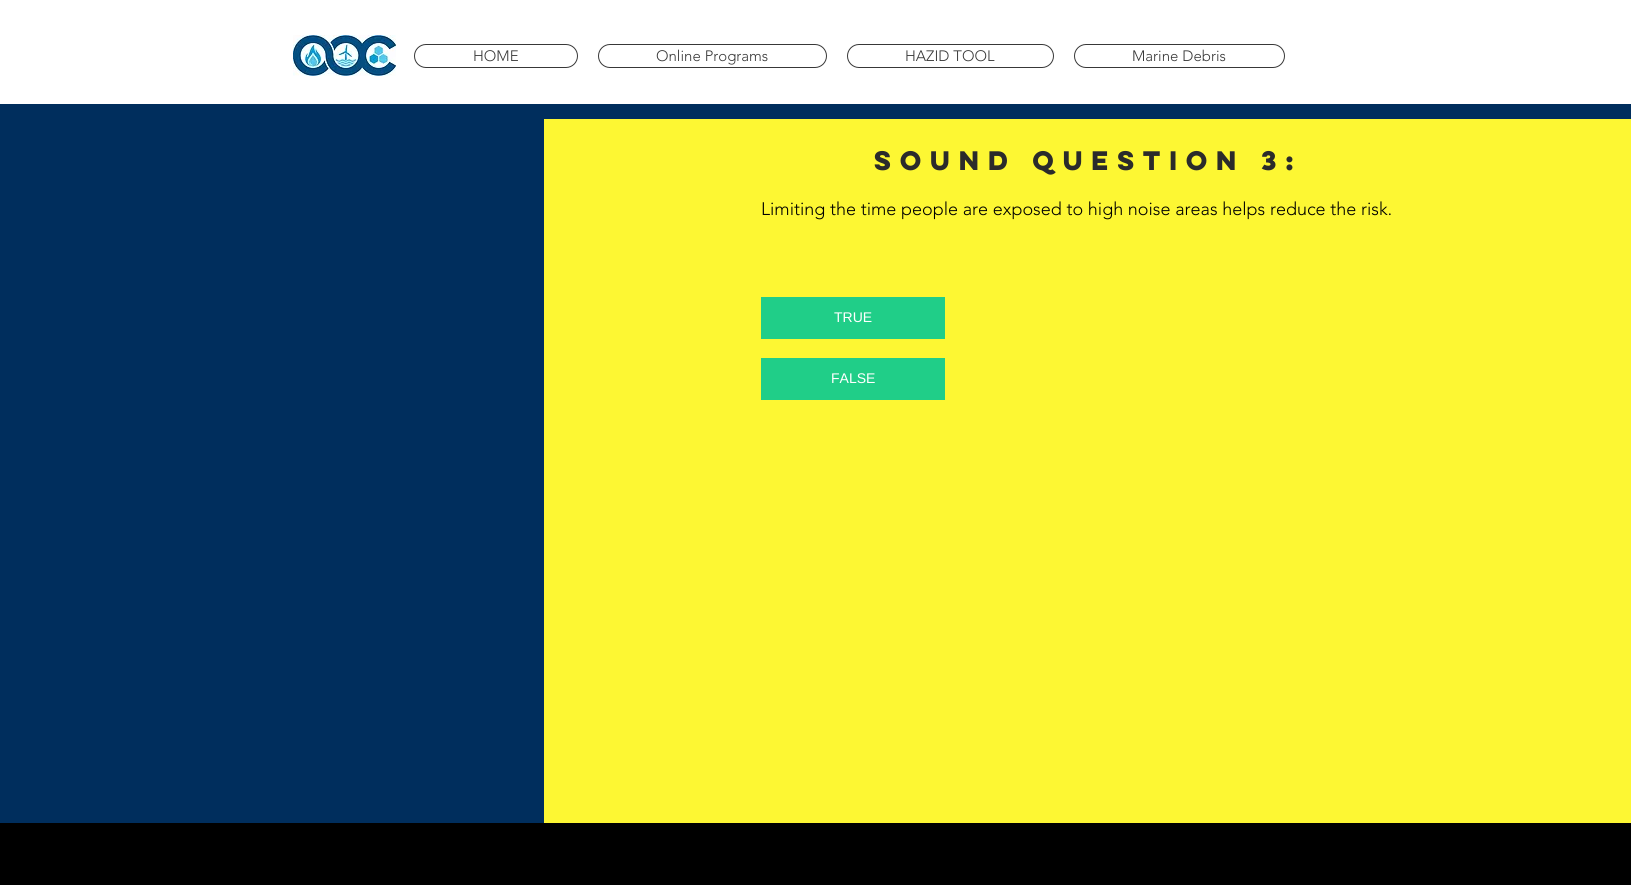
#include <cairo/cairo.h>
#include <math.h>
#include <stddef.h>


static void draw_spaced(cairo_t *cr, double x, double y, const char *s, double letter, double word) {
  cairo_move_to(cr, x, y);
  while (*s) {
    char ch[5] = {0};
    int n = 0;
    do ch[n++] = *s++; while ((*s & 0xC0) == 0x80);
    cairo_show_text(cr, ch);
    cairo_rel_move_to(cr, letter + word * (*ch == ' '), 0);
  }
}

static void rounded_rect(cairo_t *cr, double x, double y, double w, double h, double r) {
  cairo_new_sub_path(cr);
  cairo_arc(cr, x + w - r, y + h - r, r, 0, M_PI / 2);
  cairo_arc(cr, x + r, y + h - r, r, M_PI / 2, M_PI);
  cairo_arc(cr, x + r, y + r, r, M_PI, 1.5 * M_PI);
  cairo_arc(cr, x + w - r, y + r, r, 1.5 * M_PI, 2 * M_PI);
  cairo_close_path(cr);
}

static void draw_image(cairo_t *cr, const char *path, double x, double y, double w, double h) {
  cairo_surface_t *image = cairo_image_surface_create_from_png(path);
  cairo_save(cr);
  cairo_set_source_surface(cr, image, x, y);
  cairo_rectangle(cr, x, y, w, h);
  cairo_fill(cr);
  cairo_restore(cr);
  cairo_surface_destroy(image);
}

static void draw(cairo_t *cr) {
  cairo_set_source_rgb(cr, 0, 46 / 255.0, 93 / 255.0);
  cairo_paint(cr);
  cairo_set_source_rgb(cr, 1, 1, 1);
  cairo_rectangle(cr, 0, 0, 1631, 104);
  cairo_fill(cr);
  draw_image(cr, "images/1.png", 293, 35, 103, 41);
  rounded_rect(cr, 414.5, 44.5, 163, 23, 11.5);
  cairo_set_source_rgb(cr, 56 / 255.0, 56 / 255.0, 56 / 255.0);
  cairo_set_line_width(cr, 1);
  cairo_stroke(cr);
  rounded_rect(cr, 598.5, 44.5, 228, 23, 11.5);
  cairo_stroke(cr);
  rounded_rect(cr, 847.5, 44.5, 206, 23, 11.5);
  cairo_stroke(cr);
  rounded_rect(cr, 1074.5, 44.5, 210, 23, 11.5);
  cairo_stroke(cr);
  cairo_set_source_rgb(cr, 253 / 255.0, 247 / 255.0, 51 / 255.0);
  cairo_rectangle(cr, 544, 119, 1087, 704);
  cairo_fill(cr);
  cairo_set_source_rgb(cr, 32 / 255.0, 206 / 255.0, 136 / 255.0);
  cairo_rectangle(cr, 761, 297, 184, 42);
  cairo_fill(cr);
  cairo_rectangle(cr, 761, 358, 184, 42);
  cairo_fill(cr);
  cairo_set_source_rgb(cr, 0, 0, 0);
  cairo_rectangle(cr, 0, 823, 1631, 62);
  cairo_fill(cr);
  cairo_select_font_face(cr, "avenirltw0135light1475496 Light", CAIRO_FONT_SLANT_NORMAL, CAIRO_FONT_WEIGHT_NORMAL);
  cairo_set_font_size(cr, 15);
  cairo_set_source_rgb(cr, 56 / 255.0, 56 / 255.0, 56 / 255.0);
  cairo_move_to(cr, 473, 61);
  cairo_show_text(cr, "HOME");
  cairo_move_to(cr, 656, 61);
  cairo_show_text(cr, "Online Programs");
  cairo_move_to(cr, 905, 61);
  cairo_show_text(cr, "HAZID TOOL");
  cairo_move_to(cr, 1132, 61);
  cairo_show_text(cr, "Marine Debris");
  cairo_select_font_face(cr, "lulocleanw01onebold", CAIRO_FONT_SLANT_NORMAL, CAIRO_FONT_WEIGHT_BOLD);
  cairo_set_font_size(cr, 24);
  cairo_set_source_rgb(cr, 43 / 255.0, 43 / 255.0, 43 / 255.0);
  draw_spaced(cr, 874, 170, "SOUND Question 3:", 3.6, 0);
  cairo_select_font_face(cr, "avenirltw0135light1475496 Light", CAIRO_FONT_SLANT_NORMAL, CAIRO_FONT_WEIGHT_NORMAL);
  cairo_set_font_size(cr, 18);
  cairo_set_source_rgb(cr, 0, 0, 0);
  cairo_move_to(cr, 761, 215);
  cairo_show_text(cr, "Limiting the time people are exposed to high noise areas helps reduce the risk.");
  cairo_select_font_face(cr, "Liberation Sans", CAIRO_FONT_SLANT_NORMAL, CAIRO_FONT_WEIGHT_NORMAL);
  cairo_set_font_size(cr, 14);
  cairo_set_source_rgb(cr, 1, 1, 1);
  cairo_move_to(cr, 834, 322);
  cairo_show_text(cr, "TRUE");
  cairo_move_to(cr, 831, 383);
  cairo_show_text(cr, "FALSE");
}

int main(void) {
  cairo_surface_t *surface = cairo_image_surface_create(CAIRO_FORMAT_RGB24, 1631, 885);
  cairo_t *cr = cairo_create(surface);
  cairo_font_options_t *options = cairo_font_options_create();
  cairo_font_options_set_hint_metrics(options, CAIRO_HINT_METRICS_OFF);
  cairo_font_options_set_hint_style(options, CAIRO_HINT_STYLE_NONE);
  cairo_set_font_options(cr, options);
  cairo_set_miter_limit(cr, 4);
  draw(cr);
  cairo_surface_write_to_png(surface, "out.png");
  cairo_font_options_destroy(options);
  cairo_destroy(cr);
  cairo_surface_destroy(surface);
  return 0;
}
